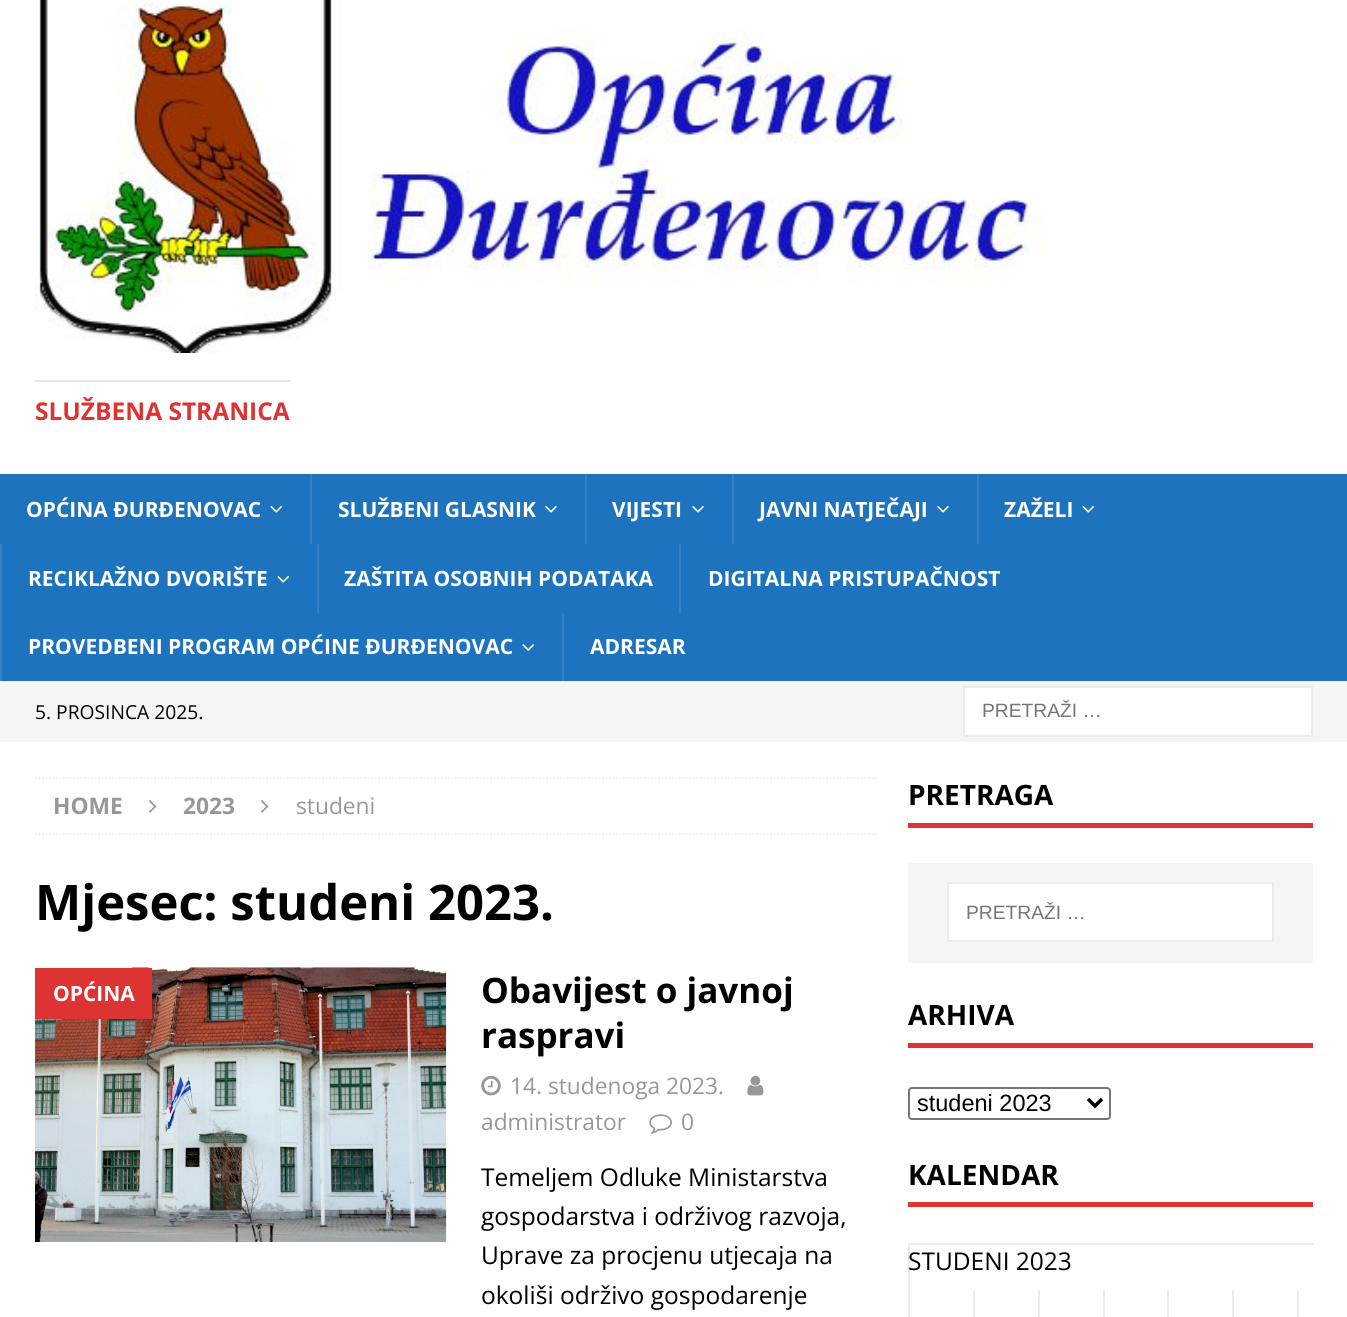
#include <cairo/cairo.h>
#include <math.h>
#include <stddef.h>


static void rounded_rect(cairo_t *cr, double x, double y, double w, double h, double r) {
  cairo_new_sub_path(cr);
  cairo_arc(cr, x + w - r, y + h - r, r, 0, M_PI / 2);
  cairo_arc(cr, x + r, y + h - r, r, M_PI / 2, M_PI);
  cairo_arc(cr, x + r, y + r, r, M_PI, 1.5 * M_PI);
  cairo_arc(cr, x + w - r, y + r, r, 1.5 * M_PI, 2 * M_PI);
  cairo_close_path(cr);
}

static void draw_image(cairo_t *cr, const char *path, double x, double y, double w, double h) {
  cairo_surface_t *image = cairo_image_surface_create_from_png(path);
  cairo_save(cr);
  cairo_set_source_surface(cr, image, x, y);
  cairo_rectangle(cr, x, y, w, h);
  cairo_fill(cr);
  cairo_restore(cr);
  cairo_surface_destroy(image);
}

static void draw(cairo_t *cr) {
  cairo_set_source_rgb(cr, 1, 1, 1);
  cairo_paint(cr);
  draw_image(cr, "images/1.png", 35, 0, 1009, 353);
  cairo_set_source_rgb(cr, 229 / 255.0, 229 / 255.0, 229 / 255.0);
  cairo_rectangle(cr, 35, 380, 256, 2);
  cairo_fill(cr);
  cairo_set_source_rgb(cr, 30 / 255.0, 115 / 255.0, 190 / 255.0);
  cairo_rectangle(cr, 0, 474, 1347, 207);
  cairo_fill(cr);
  draw_image(cr, "images/2.png", 270, 506, 12, 7);
  cairo_set_source_rgb(cr, 53 / 255.0, 129 / 255.0, 197 / 255.0);
  cairo_rectangle(cr, 310, 474, 2, 70);
  cairo_fill(cr);
  draw_image(cr, "images/3.png", 545, 506, 12, 7);
  cairo_rectangle(cr, 585, 474, 2, 70);
  cairo_fill(cr);
  draw_image(cr, "images/3.png", 692, 506, 12, 7);
  cairo_rectangle(cr, 732, 474, 2, 70);
  cairo_fill(cr);
  draw_image(cr, "images/3.png", 937, 506, 12, 7);
  cairo_rectangle(cr, 977, 474, 2, 70);
  cairo_fill(cr);
  draw_image(cr, "images/2.png", 1082, 506, 12, 7);
  cairo_rectangle(cr, 0, 544, 2, 137);
  cairo_fill(cr);
  draw_image(cr, "images/2.png", 277, 576, 12, 7);
  cairo_rectangle(cr, 317, 544, 2, 69);
  cairo_fill(cr);
  cairo_rectangle(cr, 679, 544, 2, 69);
  cairo_fill(cr);
  draw_image(cr, "images/4.png", 522, 644, 12, 7);
  cairo_rectangle(cr, 562, 613, 2, 68);
  cairo_fill(cr);
  cairo_set_source_rgb(cr, 245 / 255.0, 245 / 255.0, 245 / 255.0);
  cairo_rectangle(cr, 0, 681, 1347, 61);
  cairo_fill(cr);
  cairo_set_source_rgb(cr, 1, 1, 1);
  cairo_rectangle(cr, 964, 687, 348, 49);
  cairo_fill_preserve(cr);
  cairo_set_source_rgb(cr, 235 / 255.0, 235 / 255.0, 235 / 255.0);
  cairo_stroke(cr);
  cairo_new_path(cr);
  cairo_move_to(cr, 35, 778);
  cairo_line_to(cr, 877, 778);
  cairo_set_line_width(cr, 1.8);
  cairo_set_dash(cr, (double[]){1.75, 1.75}, 2, 0);
  cairo_stroke(cr);
  cairo_new_path(cr);
  cairo_move_to(cr, 35, 834);
  cairo_line_to(cr, 877, 834);
  cairo_stroke(cr);
  draw_image(cr, "images/5.png", 149, 800, 8, 13);
  draw_image(cr, "images/5.png", 261, 800, 8, 13);
  draw_image(cr, "images/6.png", 35, 967, 412, 275);
  cairo_set_source_rgb(cr, 221 / 255.0, 51 / 255.0, 51 / 255.0);
  cairo_rectangle(cr, 35, 968, 117, 51);
  cairo_fill(cr);
  draw_image(cr, "images/7.png", 481, 1075, 20, 21);
  draw_image(cr, "images/8.png", 747, 1075, 17, 21);
  draw_image(cr, "images/9.png", 649, 1114, 23, 20);
  cairo_rectangle(cr, 908, 823, 405, 5);
  cairo_fill(cr);
  cairo_set_source_rgb(cr, 245 / 255.0, 245 / 255.0, 245 / 255.0);
  cairo_rectangle(cr, 908, 863, 405, 100);
  cairo_fill(cr);
  cairo_set_source_rgb(cr, 1, 1, 1);
  cairo_rectangle(cr, 948, 883, 325, 58);
  cairo_fill_preserve(cr);
  cairo_set_source_rgb(cr, 235 / 255.0, 235 / 255.0, 235 / 255.0);
  cairo_set_line_width(cr, 2);
  cairo_set_dash(cr, NULL, 0, 0);
  cairo_stroke(cr);
  cairo_set_source_rgb(cr, 221 / 255.0, 51 / 255.0, 51 / 255.0);
  cairo_rectangle(cr, 908, 1043, 405, 5);
  cairo_fill(cr);
  rounded_rect(cr, 909, 1088, 201, 31, 3);
  cairo_set_source_rgb(cr, 118 / 255.0, 118 / 255.0, 118 / 255.0);
  cairo_stroke(cr);
  cairo_new_path(cr);
  cairo_move_to(cr, 1088, 1099);
  cairo_line_to(cr, 1095, 1106);
  cairo_line_to(cr, 1102, 1099);
  cairo_set_source_rgb(cr, 0, 0, 0);
  cairo_set_line_width(cr, 3.5);
  cairo_stroke(cr);
  cairo_set_source_rgb(cr, 221 / 255.0, 51 / 255.0, 51 / 255.0);
  cairo_rectangle(cr, 908, 1202, 405, 5);
  cairo_fill(cr);
  cairo_set_source_rgb(cr, 235 / 255.0, 235 / 255.0, 235 / 255.0);
  cairo_rectangle(cr, 908, 1243, 405, 2);
  cairo_fill(cr);
  cairo_rectangle(cr, 908, 1243, 2, 74);
  cairo_fill(cr);
  cairo_rectangle(cr, 973, 1290, 2, 27);
  cairo_fill(cr);
  cairo_rectangle(cr, 1038, 1290, 2, 27);
  cairo_fill(cr);
  cairo_rectangle(cr, 1103, 1290, 2, 27);
  cairo_fill(cr);
  cairo_rectangle(cr, 1167, 1290, 2, 27);
  cairo_fill(cr);
  cairo_rectangle(cr, 1232, 1290, 2, 27);
  cairo_fill(cr);
  cairo_rectangle(cr, 1297, 1290, 2, 27);
  cairo_fill(cr);
  cairo_select_font_face(cr, "Open Sans", CAIRO_FONT_SLANT_NORMAL, CAIRO_FONT_WEIGHT_BOLD);
  cairo_set_font_size(cr, 24.5);
  cairo_set_source_rgb(cr, 221 / 255.0, 51 / 255.0, 51 / 255.0);
  cairo_move_to(cr, 35, 420);
  cairo_show_text(cr, "SLUŽBENA STRANICA");
  cairo_set_font_size(cr, 21);
  cairo_set_source_rgb(cr, 1, 1, 1);
  cairo_move_to(cr, 26, 517);
  cairo_show_text(cr, "OPĆINA ĐURĐENOVAC");
  cairo_move_to(cr, 338, 517);
  cairo_show_text(cr, "SLUŽBENI GLASNIK");
  cairo_move_to(cr, 612, 517);
  cairo_show_text(cr, "VIJESTI");
  cairo_move_to(cr, 759, 517);
  cairo_show_text(cr, "JAVNI NATJEČAJI");
  cairo_move_to(cr, 1004, 517);
  cairo_show_text(cr, "ZAŽELI");
  cairo_move_to(cr, 28, 586);
  cairo_show_text(cr, "RECIKLAŽNO DVORIŠTE");
  cairo_move_to(cr, 344, 586);
  cairo_show_text(cr, "ZAŠTITA OSOBNIH PODATAKA");
  cairo_move_to(cr, 708, 586);
  cairo_show_text(cr, "DIGITALNA PRISTUPAČNOST");
  cairo_move_to(cr, 28, 654);
  cairo_show_text(cr, "PROVEDBENI PROGRAM OPĆINE ĐURĐENOVAC");
  cairo_move_to(cr, 590, 654);
  cairo_show_text(cr, "ADRESAR");
  cairo_select_font_face(cr, "Open Sans", CAIRO_FONT_SLANT_NORMAL, CAIRO_FONT_WEIGHT_NORMAL);
  cairo_set_font_size(cr, 19.25);
  cairo_set_source_rgb(cr, 0, 0, 0);
  cairo_move_to(cr, 35, 719);
  cairo_show_text(cr, "5. PROSINCA 2025.");
  cairo_select_font_face(cr, "Liberation Sans", CAIRO_FONT_SLANT_NORMAL, CAIRO_FONT_WEIGHT_NORMAL);
  cairo_set_source_rgb(cr, 117 / 255.0, 117 / 255.0, 117 / 255.0);
  cairo_move_to(cr, 982, 717);
  cairo_show_text(cr, "PRETRAŽI …");
  cairo_select_font_face(cr, "Open Sans", CAIRO_FONT_SLANT_NORMAL, CAIRO_FONT_WEIGHT_BOLD);
  cairo_set_font_size(cr, 22.75);
  cairo_set_source_rgb(cr, 151 / 255.0, 151 / 255.0, 151 / 255.0);
  cairo_move_to(cr, 53, 814);
  cairo_show_text(cr, "HOME");
  cairo_move_to(cr, 183, 814);
  cairo_show_text(cr, "2023");
  cairo_select_font_face(cr, "Open Sans", CAIRO_FONT_SLANT_NORMAL, CAIRO_FONT_WEIGHT_NORMAL);
  cairo_move_to(cr, 296, 814);
  cairo_show_text(cr, "studeni");
  cairo_select_font_face(cr, "Open Sans", CAIRO_FONT_SLANT_NORMAL, CAIRO_FONT_WEIGHT_BOLD);
  cairo_set_font_size(cr, 49);
  cairo_set_source_rgb(cr, 0, 0, 0);
  cairo_move_to(cr, 35, 920);
  cairo_show_text(cr, "Mjesec: studeni 2023.");
  cairo_set_font_size(cr, 21);
  cairo_set_source_rgb(cr, 1, 1, 1);
  cairo_move_to(cr, 53, 1001);
  cairo_show_text(cr, "OPĆINA");
  cairo_set_font_size(cr, 35);
  cairo_set_source_rgb(cr, 0, 0, 0);
  cairo_move_to(cr, 481, 1003);
  cairo_show_text(cr, "Obavijest o javnoj");
  cairo_move_to(cr, 481, 1048);
  cairo_show_text(cr, "raspravi");
  cairo_select_font_face(cr, "Open Sans", CAIRO_FONT_SLANT_NORMAL, CAIRO_FONT_WEIGHT_NORMAL);
  cairo_set_font_size(cr, 22.75);
  cairo_set_source_rgb(cr, 151 / 255.0, 151 / 255.0, 151 / 255.0);
  cairo_move_to(cr, 510, 1094);
  cairo_show_text(cr, "14. studenoga 2023.");
  cairo_move_to(cr, 481, 1130);
  cairo_show_text(cr, "administrator");
  cairo_move_to(cr, 681, 1130);
  cairo_show_text(cr, "0");
  cairo_set_font_size(cr, 24.5);
  cairo_set_source_rgb(cr, 0, 0, 0);
  cairo_move_to(cr, 481, 1186);
  cairo_show_text(cr, "Temeljem Odluke Ministarstva");
  cairo_move_to(cr, 481, 1225);
  cairo_show_text(cr, "gospodarstva i održivog razvoja,");
  cairo_move_to(cr, 481, 1264);
  cairo_show_text(cr, "Uprave za procjenu utjecaja na");
  cairo_move_to(cr, 481, 1304);
  cairo_show_text(cr, "okoliši održivo gospodarenje");
  cairo_select_font_face(cr, "Open Sans", CAIRO_FONT_SLANT_NORMAL, CAIRO_FONT_WEIGHT_BOLD);
  cairo_set_font_size(cr, 28);
  cairo_move_to(cr, 908, 805);
  cairo_show_text(cr, "PRETRAGA");
  cairo_select_font_face(cr, "Liberation Sans", CAIRO_FONT_SLANT_NORMAL, CAIRO_FONT_WEIGHT_NORMAL);
  cairo_set_font_size(cr, 19.25);
  cairo_set_source_rgb(cr, 117 / 255.0, 117 / 255.0, 117 / 255.0);
  cairo_move_to(cr, 966, 919);
  cairo_show_text(cr, "PRETRAŽI …");
  cairo_select_font_face(cr, "Open Sans", CAIRO_FONT_SLANT_NORMAL, CAIRO_FONT_WEIGHT_BOLD);
  cairo_set_font_size(cr, 28);
  cairo_set_source_rgb(cr, 0, 0, 0);
  cairo_move_to(cr, 908, 1025);
  cairo_show_text(cr, "ARHIVA");
  cairo_select_font_face(cr, "Liberation Sans", CAIRO_FONT_SLANT_NORMAL, CAIRO_FONT_WEIGHT_NORMAL);
  cairo_set_font_size(cr, 23.5);
  cairo_move_to(cr, 917, 1111);
  cairo_show_text(cr, "studeni 2023");
  cairo_select_font_face(cr, "Open Sans", CAIRO_FONT_SLANT_NORMAL, CAIRO_FONT_WEIGHT_BOLD);
  cairo_set_font_size(cr, 28);
  cairo_move_to(cr, 908, 1185);
  cairo_show_text(cr, "KALENDAR");
  cairo_select_font_face(cr, "Open Sans", CAIRO_FONT_SLANT_NORMAL, CAIRO_FONT_WEIGHT_NORMAL);
  cairo_set_font_size(cr, 24.5);
  cairo_move_to(cr, 908, 1270);
  cairo_show_text(cr, "STUDENI 2023");
}

int main(void) {
  cairo_surface_t *surface = cairo_image_surface_create(CAIRO_FORMAT_RGB24, 1347, 1317);
  cairo_t *cr = cairo_create(surface);
  cairo_font_options_t *options = cairo_font_options_create();
  cairo_font_options_set_hint_metrics(options, CAIRO_HINT_METRICS_OFF);
  cairo_font_options_set_hint_style(options, CAIRO_HINT_STYLE_NONE);
  cairo_set_font_options(cr, options);
  cairo_set_miter_limit(cr, 4);
  draw(cr);
  cairo_surface_write_to_png(surface, "out.png");
  cairo_font_options_destroy(options);
  cairo_destroy(cr);
  cairo_surface_destroy(surface);
  return 0;
}
